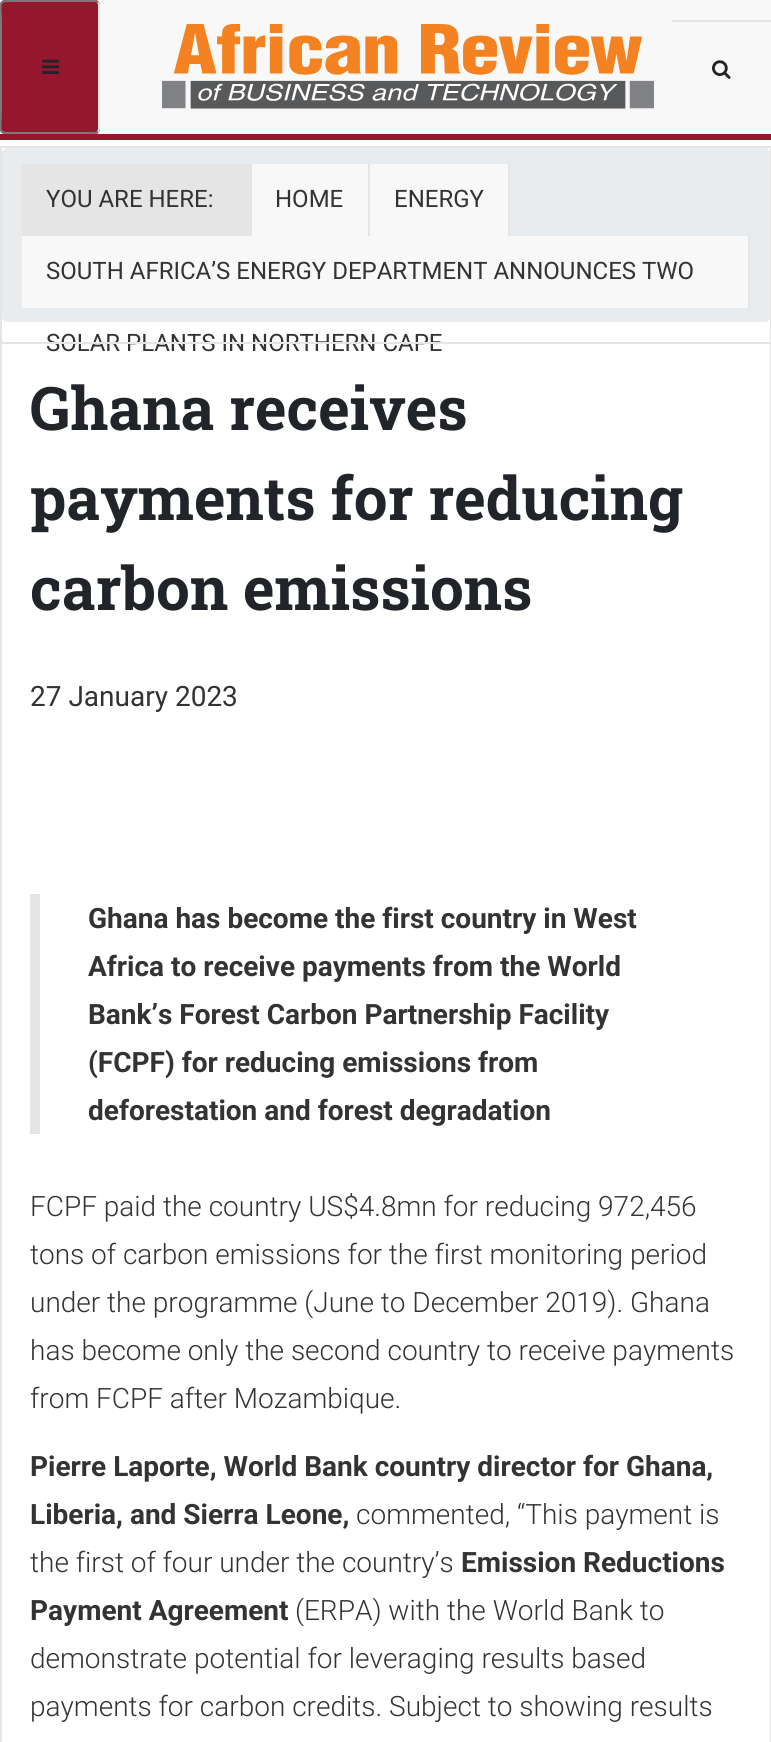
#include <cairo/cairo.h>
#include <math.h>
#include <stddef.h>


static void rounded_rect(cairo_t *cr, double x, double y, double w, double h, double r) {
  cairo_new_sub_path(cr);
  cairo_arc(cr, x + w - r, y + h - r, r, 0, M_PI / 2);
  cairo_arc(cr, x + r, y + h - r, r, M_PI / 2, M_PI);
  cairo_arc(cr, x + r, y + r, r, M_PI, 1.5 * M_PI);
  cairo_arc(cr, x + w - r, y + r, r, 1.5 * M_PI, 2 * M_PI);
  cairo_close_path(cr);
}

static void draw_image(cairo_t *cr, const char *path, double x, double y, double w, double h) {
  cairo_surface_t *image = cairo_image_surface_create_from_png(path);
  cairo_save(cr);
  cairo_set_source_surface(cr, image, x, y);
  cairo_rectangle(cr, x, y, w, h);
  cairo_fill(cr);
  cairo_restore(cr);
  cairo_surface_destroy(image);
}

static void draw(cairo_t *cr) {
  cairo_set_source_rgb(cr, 1, 1, 1);
  cairo_paint(cr);
  cairo_set_source_rgb(cr, 248 / 255.0, 248 / 255.0, 248 / 255.0);
  cairo_rectangle(cr, 0, 0, 771, 134);
  cairo_fill(cr);
  cairo_set_source_rgb(cr, 150 / 255.0, 22 / 255.0, 46 / 255.0);
  cairo_rectangle(cr, 0, 134, 771, 6);
  cairo_fill(cr);
  rounded_rect(cr, 0, 0, 100, 134, 5);
  cairo_fill(cr);
  cairo_new_path(cr);
  cairo_move_to(cr, 98, 2);
  cairo_line_to(cr, 99, 4.5);
  cairo_line_to(cr, 99, 108.5);
  cairo_line_to(cr, 99, 129);
  cairo_line_to(cr, 98, 132);
  cairo_set_source_rgb(cr, 229 / 255.0, 229 / 255.0, 229 / 255.0);
  cairo_stroke(cr);
  cairo_new_path(cr);
  cairo_move_to(cr, 98, 132);
  cairo_line_to(cr, 95, 133);
  cairo_line_to(cr, 20, 133);
  cairo_curve_to(cr, -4.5, 133, 1, 135.5, 1, 108.5);
  cairo_line_to(cr, 1, 25.5);
  cairo_curve_to(cr, 1, -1.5, -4.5, 1, 20, 1);
  cairo_line_to(cr, 95, 1);
  cairo_line_to(cr, 98, 2);
  cairo_set_source_rgb(cr, 122 / 255.0, 122 / 255.0, 122 / 255.0);
  cairo_stroke(cr);
  draw_image(cr, "images/1.png", 42, 59, 18, 15);
  draw_image(cr, "images/2.png", 162, 24, 492, 85);
  cairo_set_source_rgb(cr, 229 / 255.0, 229 / 255.0, 229 / 255.0);
  cairo_rectangle(cr, 672, 20, 99, 2);
  cairo_fill(cr);
  draw_image(cr, "images/3.png", 712, 60, 19, 19);
  cairo_rectangle(cr, 0, 146, 771, 2);
  cairo_fill(cr);
  cairo_rectangle(cr, 770, 146, 1, 196);
  cairo_fill(cr);
  cairo_rectangle(cr, 0, 146, 2, 196);
  cairo_fill(cr);
  cairo_set_source_rgb(cr, 233 / 255.0, 236 / 255.0, 239 / 255.0);
  rounded_rect(cr, 2, 148, 768, 174, 5);
  cairo_fill(cr);
  cairo_set_source_rgb(cr, 229 / 255.0, 229 / 255.0, 229 / 255.0);
  cairo_rectangle(cr, 22, 164, 230, 72);
  cairo_fill(cr);
  cairo_set_source_rgb(cr, 248 / 255.0, 248 / 255.0, 248 / 255.0);
  cairo_rectangle(cr, 252, 164, 116, 72);
  cairo_fill(cr);
  cairo_set_source_rgb(cr, 229 / 255.0, 229 / 255.0, 229 / 255.0);
  cairo_rectangle(cr, 368, 164, 2, 72);
  cairo_fill(cr);
  cairo_set_source_rgb(cr, 248 / 255.0, 248 / 255.0, 248 / 255.0);
  cairo_rectangle(cr, 370, 164, 138, 72);
  cairo_fill(cr);
  cairo_set_source_rgb(cr, 229 / 255.0, 229 / 255.0, 229 / 255.0);
  cairo_rectangle(cr, 508, 164, 2, 72);
  cairo_fill(cr);
  cairo_set_source_rgb(cr, 248 / 255.0, 248 / 255.0, 248 / 255.0);
  cairo_rectangle(cr, 22, 236, 726, 72);
  cairo_fill(cr);
  cairo_set_source_rgb(cr, 229 / 255.0, 229 / 255.0, 229 / 255.0);
  cairo_rectangle(cr, 748, 236, 2, 72);
  cairo_fill(cr);
  cairo_select_font_face(cr, "Roboto", CAIRO_FONT_SLANT_NORMAL, CAIRO_FONT_WEIGHT_NORMAL);
  cairo_set_font_size(cr, 24);
  cairo_set_source_rgb(cr, 51 / 255.0, 51 / 255.0, 51 / 255.0);
  cairo_move_to(cr, 46, 207);
  cairo_show_text(cr, "YOU ARE HERE:");
  cairo_move_to(cr, 275, 207);
  cairo_show_text(cr, "HOME");
  cairo_move_to(cr, 394, 207);
  cairo_show_text(cr, "ENERGY");
  cairo_move_to(cr, 46, 279);
  cairo_show_text(cr, "SOUTH AFRICA’S ENERGY DEPARTMENT ANNOUNCES TWO");
  cairo_move_to(cr, 46, 351);
  cairo_show_text(cr, "SOLAR PLANTS IN NORTHERN CAPE");
  cairo_rectangle(cr, 1, 343, 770, 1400);
  cairo_set_source_rgb(cr, 229 / 255.0, 229 / 255.0, 229 / 255.0);
  cairo_stroke(cr);
  cairo_select_font_face(cr, "Roboto Slab", CAIRO_FONT_SLANT_NORMAL, CAIRO_FONT_WEIGHT_BOLD);
  cairo_set_font_size(cr, 60);
  cairo_set_source_rgb(cr, 33 / 255.0, 37 / 255.0, 41 / 255.0);
  cairo_move_to(cr, 30, 430);
  cairo_show_text(cr, "Ghana receives");
  cairo_move_to(cr, 30, 520);
  cairo_show_text(cr, "payments for reducing");
  cairo_move_to(cr, 30, 610);
  cairo_show_text(cr, "carbon emissions");
  cairo_select_font_face(cr, "Roboto", CAIRO_FONT_SLANT_NORMAL, CAIRO_FONT_WEIGHT_NORMAL);
  cairo_set_font_size(cr, 28);
  cairo_set_source_rgb(cr, 51 / 255.0, 51 / 255.0, 51 / 255.0);
  cairo_move_to(cr, 30, 706);
  cairo_show_text(cr, "27 January 2023");
  cairo_set_source_rgb(cr, 229 / 255.0, 229 / 255.0, 229 / 255.0);
  cairo_rectangle(cr, 30, 894, 10, 240);
  cairo_fill(cr);
  cairo_select_font_face(cr, "Roboto", CAIRO_FONT_SLANT_NORMAL, CAIRO_FONT_WEIGHT_BOLD);
  cairo_set_source_rgb(cr, 51 / 255.0, 51 / 255.0, 51 / 255.0);
  cairo_move_to(cr, 88, 928);
  cairo_show_text(cr, "Ghana has become the first country in West");
  cairo_move_to(cr, 88, 976);
  cairo_show_text(cr, "Africa to receive payments from the World");
  cairo_move_to(cr, 88, 1024);
  cairo_show_text(cr, "Bank’s Forest Carbon Partnership Facility");
  cairo_move_to(cr, 88, 1072);
  cairo_show_text(cr, "(FCPF) for reducing emissions from");
  cairo_move_to(cr, 88, 1120);
  cairo_show_text(cr, "deforestation and forest degradation");
  cairo_select_font_face(cr, "Roboto Light", CAIRO_FONT_SLANT_NORMAL, CAIRO_FONT_WEIGHT_NORMAL);
  cairo_move_to(cr, 30, 1216);
  cairo_show_text(cr, "FCPF paid the country US$4.8mn for reducing 972,456");
  cairo_move_to(cr, 30, 1264);
  cairo_show_text(cr, "tons of carbon emissions for the first monitoring period");
  cairo_move_to(cr, 30, 1312);
  cairo_show_text(cr, "under the programme (June to December 2019). Ghana");
  cairo_move_to(cr, 30, 1360);
  cairo_show_text(cr, "has become only the second country to receive payments");
  cairo_move_to(cr, 30, 1408);
  cairo_show_text(cr, "from FCPF after Mozambique.");
  cairo_select_font_face(cr, "Roboto", CAIRO_FONT_SLANT_NORMAL, CAIRO_FONT_WEIGHT_BOLD);
  cairo_move_to(cr, 30, 1476);
  cairo_show_text(cr, "Pierre Laporte, World Bank country director for Ghana,");
  cairo_move_to(cr, 30, 1524);
  cairo_show_text(cr, "Liberia, and Sierra Leone,");
  cairo_select_font_face(cr, "Roboto Light", CAIRO_FONT_SLANT_NORMAL, CAIRO_FONT_WEIGHT_NORMAL);
  cairo_move_to(cr, 356, 1524);
  cairo_show_text(cr, "commented, “This payment is");
  cairo_move_to(cr, 30, 1572);
  cairo_show_text(cr, "the first of four under the country’s");
  cairo_select_font_face(cr, "Roboto", CAIRO_FONT_SLANT_NORMAL, CAIRO_FONT_WEIGHT_BOLD);
  cairo_move_to(cr, 461, 1572);
  cairo_show_text(cr, "Emission Reductions");
  cairo_move_to(cr, 30, 1620);
  cairo_show_text(cr, "Payment Agreement");
  cairo_select_font_face(cr, "Roboto Light", CAIRO_FONT_SLANT_NORMAL, CAIRO_FONT_WEIGHT_NORMAL);
  cairo_move_to(cr, 295, 1620);
  cairo_show_text(cr, "(ERPA) with the World Bank to");
  cairo_move_to(cr, 30, 1668);
  cairo_show_text(cr, "demonstrate potential for leveraging results based");
  cairo_move_to(cr, 30, 1716);
  cairo_show_text(cr, "payments for carbon credits. Subject to showing results");
}

int main(void) {
  cairo_surface_t *surface = cairo_image_surface_create(CAIRO_FORMAT_RGB24, 771, 1742);
  cairo_t *cr = cairo_create(surface);
  cairo_font_options_t *options = cairo_font_options_create();
  cairo_font_options_set_hint_metrics(options, CAIRO_HINT_METRICS_OFF);
  cairo_font_options_set_hint_style(options, CAIRO_HINT_STYLE_NONE);
  cairo_set_font_options(cr, options);
  cairo_set_miter_limit(cr, 4);
  draw(cr);
  cairo_surface_write_to_png(surface, "out.png");
  cairo_font_options_destroy(options);
  cairo_destroy(cr);
  cairo_surface_destroy(surface);
  return 0;
}
